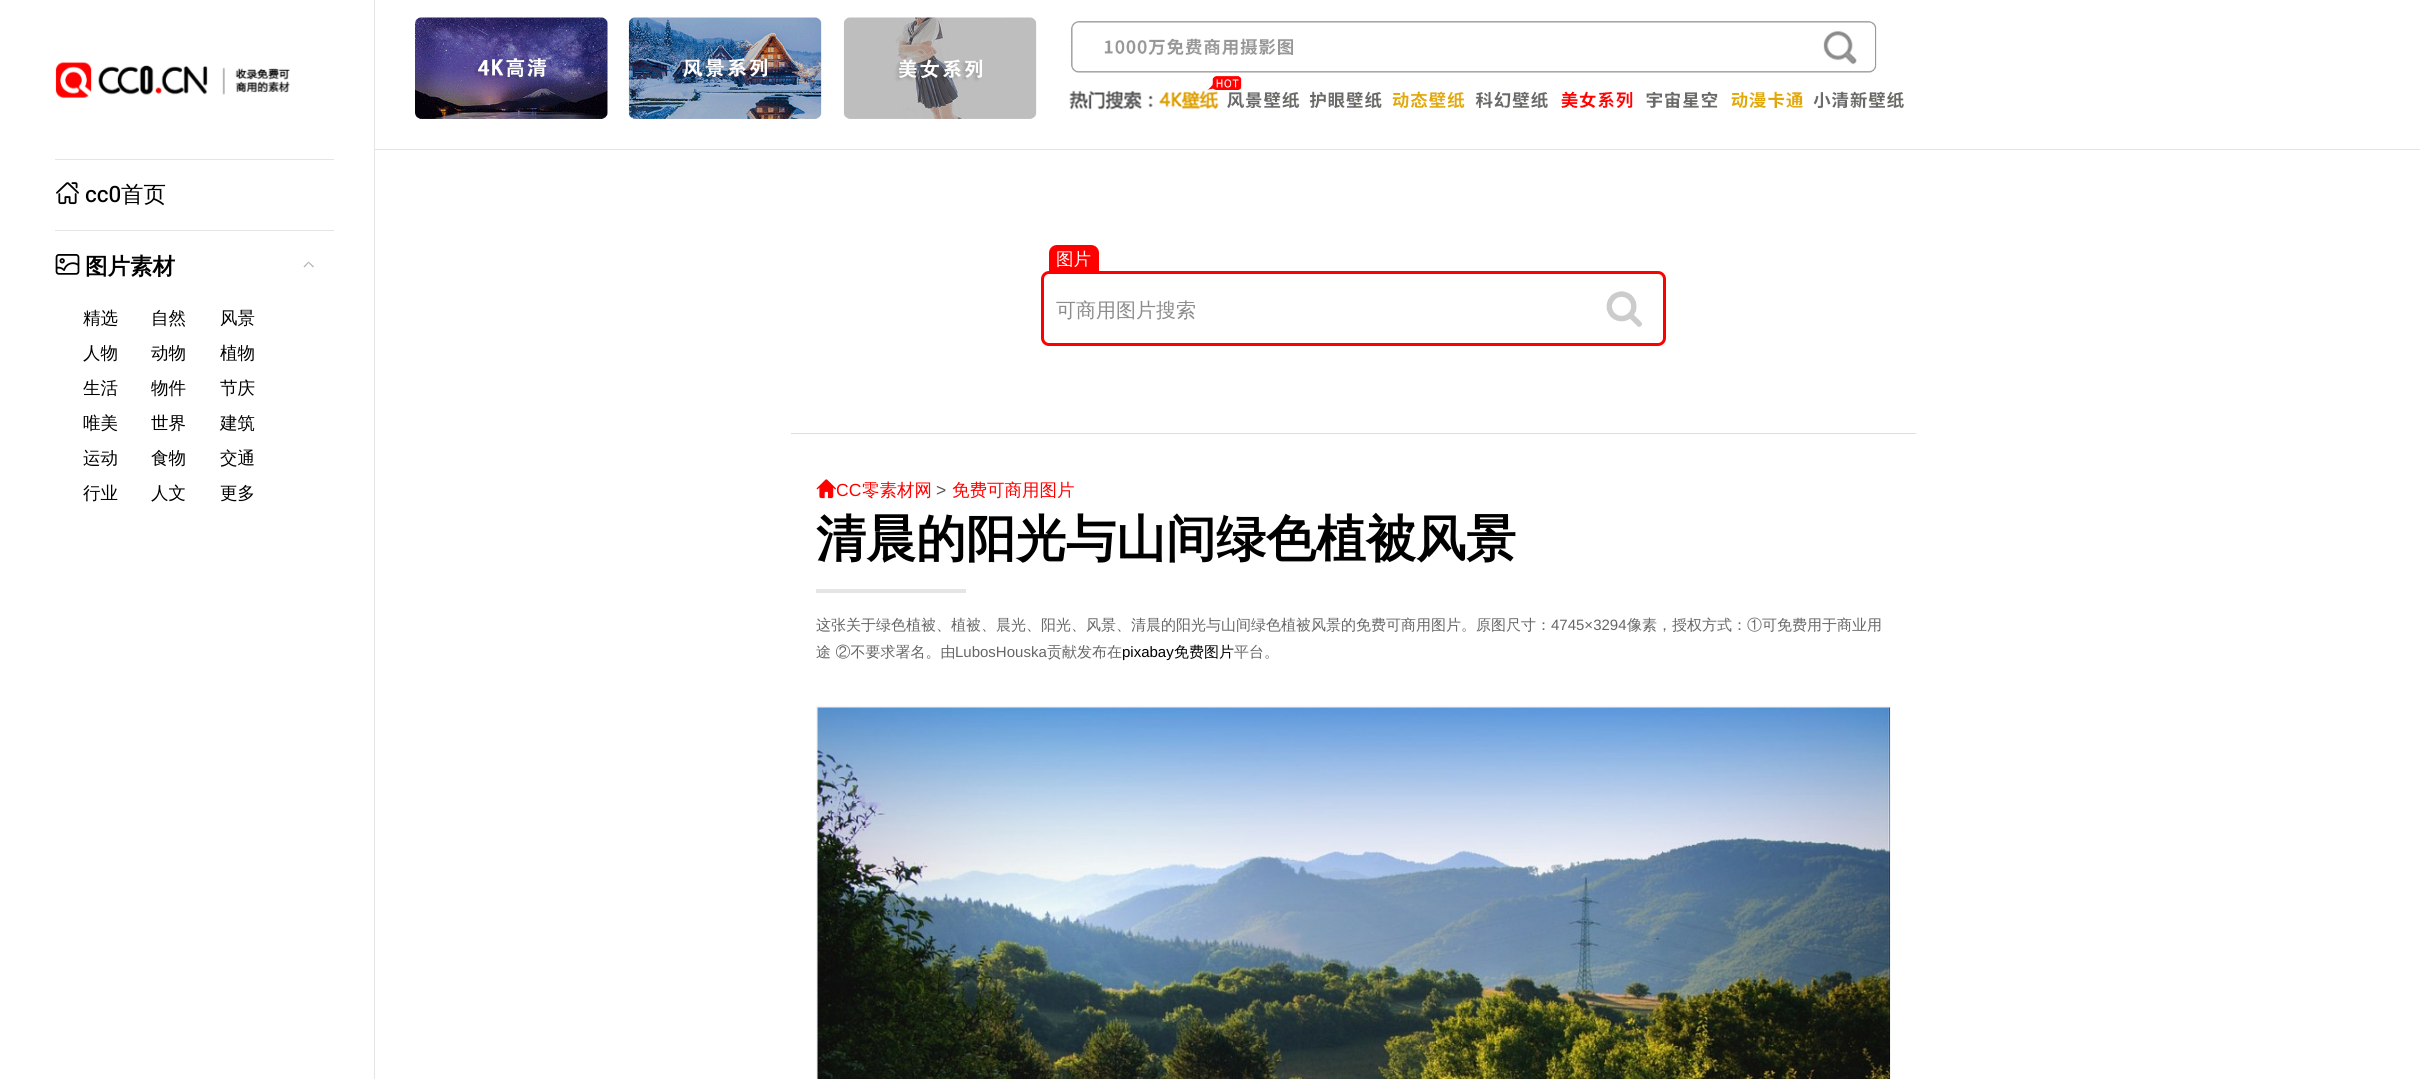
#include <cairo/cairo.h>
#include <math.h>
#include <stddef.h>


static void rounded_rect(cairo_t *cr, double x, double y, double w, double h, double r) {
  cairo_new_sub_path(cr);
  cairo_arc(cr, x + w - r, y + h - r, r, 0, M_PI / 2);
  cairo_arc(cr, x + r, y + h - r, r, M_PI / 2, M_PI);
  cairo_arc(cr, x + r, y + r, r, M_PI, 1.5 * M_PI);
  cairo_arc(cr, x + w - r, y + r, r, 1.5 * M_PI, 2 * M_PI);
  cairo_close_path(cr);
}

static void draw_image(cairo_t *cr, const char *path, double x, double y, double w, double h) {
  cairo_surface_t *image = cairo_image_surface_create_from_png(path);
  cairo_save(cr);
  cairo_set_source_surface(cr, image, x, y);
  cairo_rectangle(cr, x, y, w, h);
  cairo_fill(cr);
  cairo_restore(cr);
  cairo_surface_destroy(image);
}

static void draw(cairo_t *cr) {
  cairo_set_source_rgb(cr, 1, 1, 1);
  cairo_paint(cr);
  cairo_set_source_rgb(cr, 229 / 255.0, 229 / 255.0, 229 / 255.0);
  cairo_rectangle(cr, 375, 149, 2045, 1);
  cairo_fill(cr);
  draw_image(cr, "images/1.png", 415, 17, 1489, 102);
  cairo_rectangle(cr, 374, 0, 1, 1079);
  cairo_fill(cr);
  draw_image(cr, "images/2.png", 55, 62, 235, 36);
  cairo_rectangle(cr, 55, 159, 279, 1);
  cairo_fill(cr);
  draw_image(cr, "images/3.png", 56, 182, 23, 23);
  cairo_rectangle(cr, 55, 230, 279, 1);
  cairo_fill(cr);
  draw_image(cr, "images/4.png", 55, 254, 25, 21);
  cairo_set_source_rgb(cr, 180 / 255.0, 180 / 255.0, 180 / 255.0);
  cairo_new_path(cr);
  cairo_move_to(cr, 303.5, 266.5);
  cairo_line_to(cr, 308.5, 261.5);
  cairo_line_to(cr, 308.5, 263);
  cairo_line_to(cr, 304.5, 267.5);
  cairo_close_path(cr);
  cairo_fill(cr);
  cairo_set_source_rgba(cr, 68 / 255.0, 68 / 255.0, 68 / 255.0, 0.4);
  cairo_new_path(cr);
  cairo_move_to(cr, 308.5, 261.5);
  cairo_line_to(cr, 314, 266.5);
  cairo_line_to(cr, 313, 267.5);
  cairo_line_to(cr, 308.5, 263);
  cairo_close_path(cr);
  cairo_fill(cr);
  cairo_set_source_rgb(cr, 1, 0, 0);
  cairo_new_path(cr);
  cairo_move_to(cr, 1057, 245);
  cairo_line_to(cr, 1091, 245);
  cairo_curve_to(cr, 1095.5, 245, 1099, 248.5, 1099, 253);
  cairo_line_to(cr, 1099, 275);
  cairo_line_to(cr, 1049, 275);
  cairo_line_to(cr, 1049, 253);
  cairo_curve_to(cr, 1049, 248.5, 1052.5, 245, 1057, 245);
  cairo_close_path(cr);
  cairo_fill(cr);
  cairo_set_source_rgb(cr, 1, 1, 1);
  rounded_rect(cr, 1042.5, 272.5, 622, 72, 6.5);
  cairo_fill_preserve(cr);
  cairo_set_source_rgb(cr, 1, 0, 0);
  cairo_set_line_width(cr, 3);
  cairo_stroke(cr);
  draw_image(cr, "images/5.png", 1606, 291, 36, 36);
  cairo_set_source_rgb(cr, 221 / 255.0, 222 / 255.0, 223 / 255.0);
  cairo_rectangle(cr, 791, 433, 1125, 1);
  cairo_fill(cr);
  draw_image(cr, "images/6.png", 816, 479, 20, 20);
  cairo_set_source_rgb(cr, 229 / 255.0, 229 / 255.0, 229 / 255.0);
  cairo_rectangle(cr, 816, 589, 150, 4);
  cairo_fill(cr);
  cairo_set_source_rgb(cr, 245 / 255.0, 245 / 255.0, 245 / 255.0);
  cairo_rectangle(cr, 816, 706, 1075, 373);
  cairo_fill(cr);
  draw_image(cr, "images/7.png", 817, 707, 1073, 372);
  cairo_select_font_face(cr, "Heebo Medium", CAIRO_FONT_SLANT_NORMAL, CAIRO_FONT_WEIGHT_NORMAL);
  cairo_set_font_size(cr, 22.5);
  cairo_set_source_rgb(cr, 0, 0, 0);
  cairo_move_to(cr, 85, 202);
  cairo_show_text(cr, "cc0");
  cairo_select_font_face(cr, "WenQuanYi Zen Hei Medium", CAIRO_FONT_SLANT_NORMAL, CAIRO_FONT_WEIGHT_NORMAL);
  cairo_move_to(cr, 121, 202);
  cairo_show_text(cr, "首页");
  cairo_select_font_face(cr, "WenQuanYi Zen Hei", CAIRO_FONT_SLANT_NORMAL, CAIRO_FONT_WEIGHT_BOLD);
  cairo_move_to(cr, 85, 274);
  cairo_show_text(cr, "图片素材");
  cairo_select_font_face(cr, "WenQuanYi Zen Hei Medium", CAIRO_FONT_SLANT_NORMAL, CAIRO_FONT_WEIGHT_NORMAL);
  cairo_set_font_size(cr, 17.5);
  cairo_move_to(cr, 83, 324);
  cairo_show_text(cr, "精选");
  cairo_move_to(cr, 151, 324);
  cairo_show_text(cr, "自然");
  cairo_move_to(cr, 220, 324);
  cairo_show_text(cr, "风景");
  cairo_move_to(cr, 83, 359);
  cairo_show_text(cr, "人物");
  cairo_move_to(cr, 151, 359);
  cairo_show_text(cr, "动物");
  cairo_move_to(cr, 220, 359);
  cairo_show_text(cr, "植物");
  cairo_move_to(cr, 83, 394);
  cairo_show_text(cr, "生活");
  cairo_move_to(cr, 151, 394);
  cairo_show_text(cr, "物件");
  cairo_move_to(cr, 220, 394);
  cairo_show_text(cr, "节庆");
  cairo_move_to(cr, 83, 429);
  cairo_show_text(cr, "唯美");
  cairo_move_to(cr, 151, 429);
  cairo_show_text(cr, "世界");
  cairo_move_to(cr, 220, 429);
  cairo_show_text(cr, "建筑");
  cairo_move_to(cr, 83, 464);
  cairo_show_text(cr, "运动");
  cairo_move_to(cr, 151, 464);
  cairo_show_text(cr, "食物");
  cairo_move_to(cr, 220, 464);
  cairo_show_text(cr, "交通");
  cairo_move_to(cr, 83, 499);
  cairo_show_text(cr, "行业");
  cairo_move_to(cr, 151, 499);
  cairo_show_text(cr, "人文");
  cairo_move_to(cr, 220, 499);
  cairo_show_text(cr, "更多");
  cairo_set_source_rgb(cr, 1, 1, 1);
  cairo_move_to(cr, 1056, 265);
  cairo_show_text(cr, "图片");
  cairo_set_font_size(cr, 20);
  cairo_set_source_rgb(cr, 140 / 255.0, 140 / 255.0, 140 / 255.0);
  cairo_move_to(cr, 1056, 317);
  cairo_show_text(cr, "可商用图片搜索");
  cairo_select_font_face(cr, "Liberation Sans", CAIRO_FONT_SLANT_NORMAL, CAIRO_FONT_WEIGHT_NORMAL);
  cairo_set_font_size(cr, 17.5);
  cairo_set_source_rgb(cr, 1, 0, 0);
  cairo_move_to(cr, 836, 496);
  cairo_show_text(cr, "CC");
  cairo_select_font_face(cr, "WenQuanYi Zen Hei Medium", CAIRO_FONT_SLANT_NORMAL, CAIRO_FONT_WEIGHT_NORMAL);
  cairo_move_to(cr, 862, 496);
  cairo_show_text(cr, "零素材网");
  cairo_select_font_face(cr, "Liberation Sans", CAIRO_FONT_SLANT_NORMAL, CAIRO_FONT_WEIGHT_NORMAL);
  cairo_set_source_rgb(cr, 85 / 255.0, 85 / 255.0, 85 / 255.0);
  cairo_move_to(cr, 936, 496);
  cairo_show_text(cr, ">");
  cairo_select_font_face(cr, "WenQuanYi Zen Hei Medium", CAIRO_FONT_SLANT_NORMAL, CAIRO_FONT_WEIGHT_NORMAL);
  cairo_set_source_rgb(cr, 1, 0, 0);
  cairo_move_to(cr, 952, 496);
  cairo_show_text(cr, "免费可商用图片");
  cairo_select_font_face(cr, "WenQuanYi Zen Hei", CAIRO_FONT_SLANT_NORMAL, CAIRO_FONT_WEIGHT_BOLD);
  cairo_set_font_size(cr, 50);
  cairo_set_source_rgb(cr, 0, 0, 0);
  cairo_move_to(cr, 816, 556);
  cairo_show_text(cr, "清晨的阳光与山间绿色植被风景");
  cairo_select_font_face(cr, "WenQuanYi Zen Hei Medium", CAIRO_FONT_SLANT_NORMAL, CAIRO_FONT_WEIGHT_NORMAL);
  cairo_set_font_size(cr, 15);
  cairo_set_source_rgb(cr, 102 / 255.0, 102 / 255.0, 102 / 255.0);
  cairo_move_to(cr, 816, 630);
  cairo_show_text(cr, "这张关于绿色植被、植被、晨光、阳光、风景、清晨的阳光与山间绿色植被风景的免费可商用图片。原图尺寸：");
  cairo_select_font_face(cr, "Liberation Sans", CAIRO_FONT_SLANT_NORMAL, CAIRO_FONT_WEIGHT_NORMAL);
  cairo_move_to(cr, 1551, 630);
  cairo_show_text(cr, "4745×3294");
  cairo_select_font_face(cr, "WenQuanYi Zen Hei Medium", CAIRO_FONT_SLANT_NORMAL, CAIRO_FONT_WEIGHT_NORMAL);
  cairo_move_to(cr, 1627, 630);
  cairo_show_text(cr, "像素，授权方式：①可免费用于商业用");
  cairo_move_to(cr, 816, 657);
  cairo_show_text(cr, "途 ②不要求署名。由");
  cairo_select_font_face(cr, "Liberation Sans", CAIRO_FONT_SLANT_NORMAL, CAIRO_FONT_WEIGHT_NORMAL);
  cairo_move_to(cr, 955, 657);
  cairo_show_text(cr, "LubosHouska");
  cairo_select_font_face(cr, "WenQuanYi Zen Hei Medium", CAIRO_FONT_SLANT_NORMAL, CAIRO_FONT_WEIGHT_NORMAL);
  cairo_move_to(cr, 1047, 657);
  cairo_show_text(cr, "贡献发布在");
  cairo_select_font_face(cr, "Liberation Sans", CAIRO_FONT_SLANT_NORMAL, CAIRO_FONT_WEIGHT_NORMAL);
  cairo_set_source_rgb(cr, 0, 0, 0);
  cairo_move_to(cr, 1122, 657);
  cairo_show_text(cr, "pixabay");
  cairo_select_font_face(cr, "WenQuanYi Zen Hei Medium", CAIRO_FONT_SLANT_NORMAL, CAIRO_FONT_WEIGHT_NORMAL);
  cairo_move_to(cr, 1174, 657);
  cairo_show_text(cr, "免费图片");
  cairo_set_source_rgb(cr, 102 / 255.0, 102 / 255.0, 102 / 255.0);
  cairo_move_to(cr, 1234, 657);
  cairo_show_text(cr, "平台。");
}

int main(void) {
  cairo_surface_t *surface = cairo_image_surface_create(CAIRO_FORMAT_RGB24, 2420, 1079);
  cairo_t *cr = cairo_create(surface);
  cairo_font_options_t *options = cairo_font_options_create();
  cairo_font_options_set_hint_metrics(options, CAIRO_HINT_METRICS_OFF);
  cairo_font_options_set_hint_style(options, CAIRO_HINT_STYLE_NONE);
  cairo_set_font_options(cr, options);
  cairo_set_miter_limit(cr, 4);
  draw(cr);
  cairo_surface_write_to_png(surface, "out.png");
  cairo_font_options_destroy(options);
  cairo_destroy(cr);
  cairo_surface_destroy(surface);
  return 0;
}
